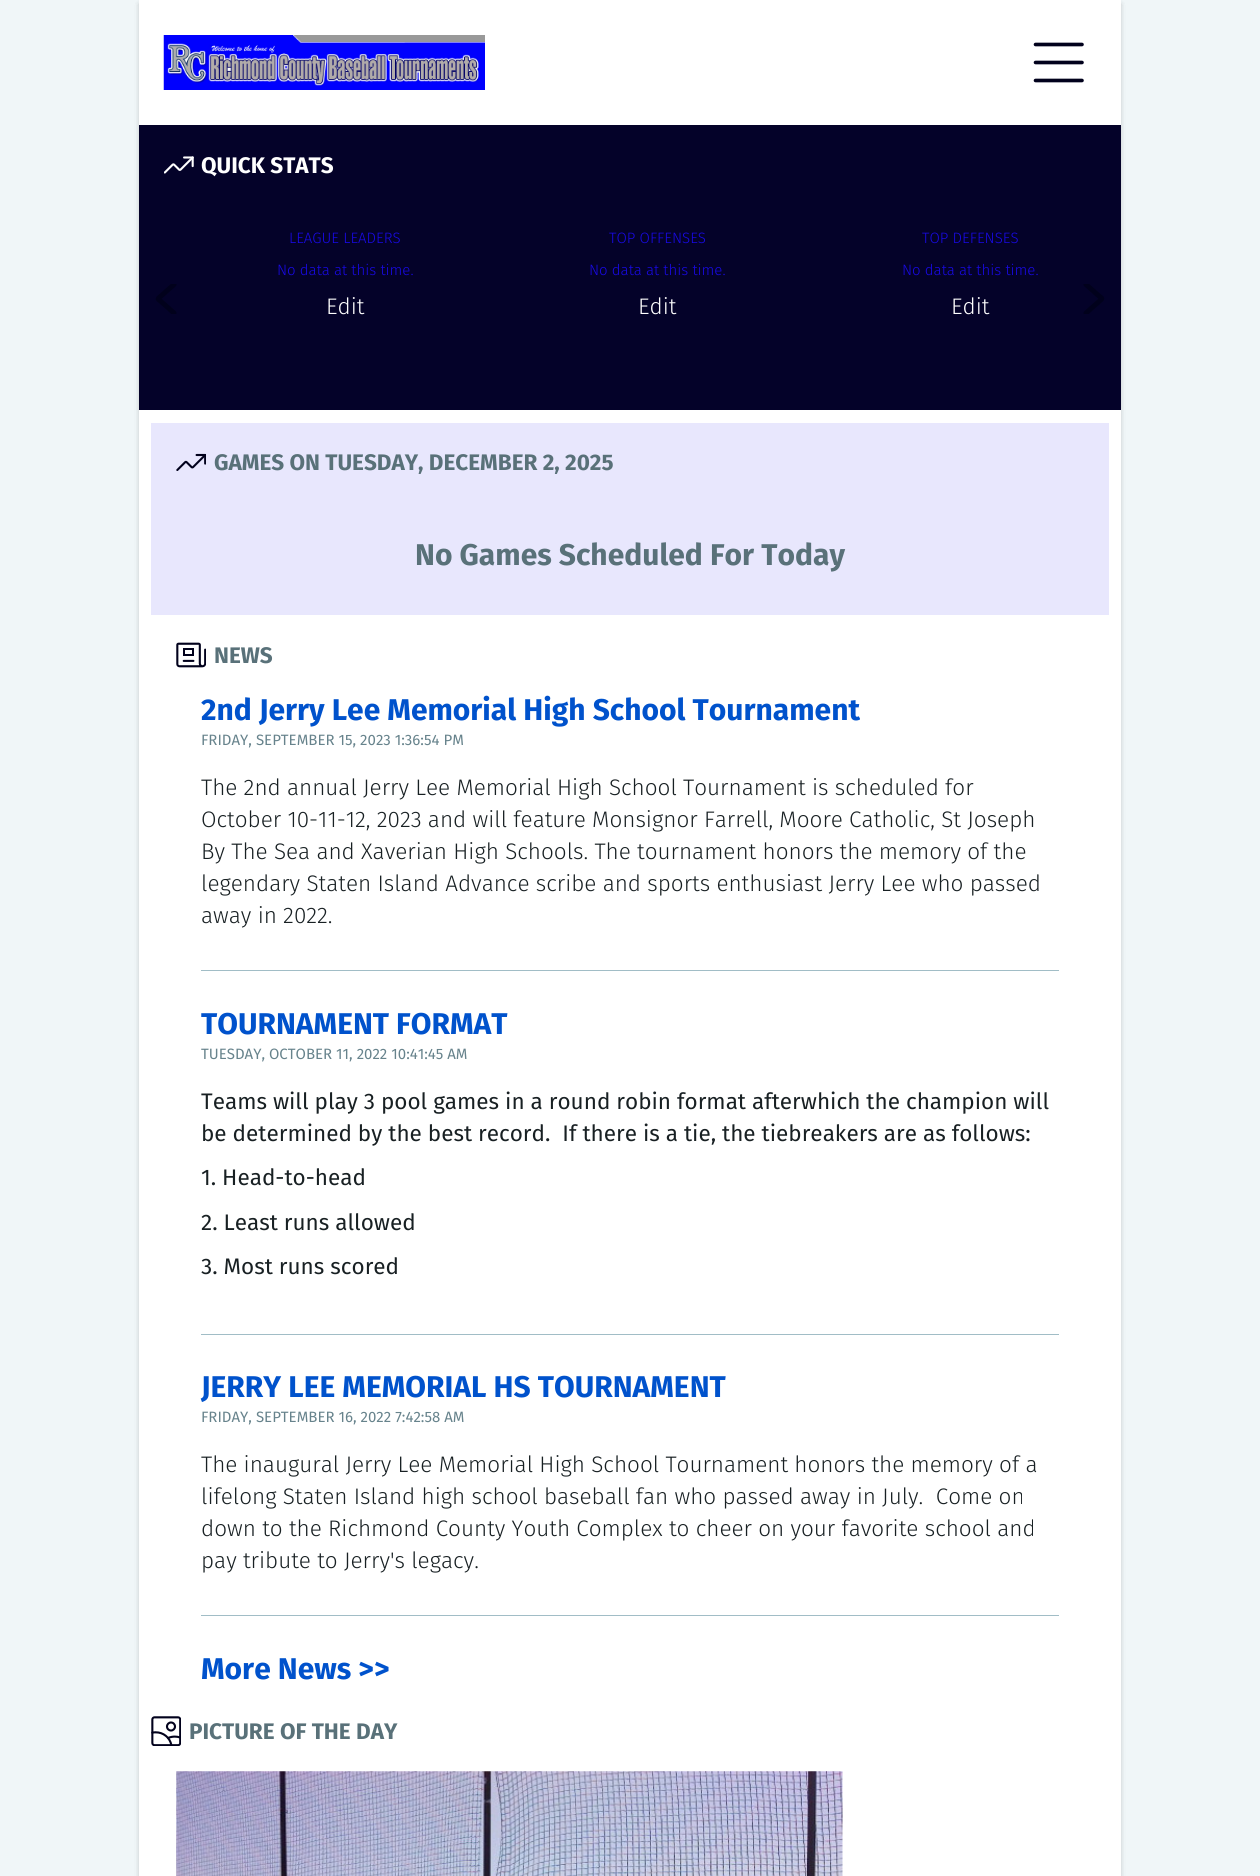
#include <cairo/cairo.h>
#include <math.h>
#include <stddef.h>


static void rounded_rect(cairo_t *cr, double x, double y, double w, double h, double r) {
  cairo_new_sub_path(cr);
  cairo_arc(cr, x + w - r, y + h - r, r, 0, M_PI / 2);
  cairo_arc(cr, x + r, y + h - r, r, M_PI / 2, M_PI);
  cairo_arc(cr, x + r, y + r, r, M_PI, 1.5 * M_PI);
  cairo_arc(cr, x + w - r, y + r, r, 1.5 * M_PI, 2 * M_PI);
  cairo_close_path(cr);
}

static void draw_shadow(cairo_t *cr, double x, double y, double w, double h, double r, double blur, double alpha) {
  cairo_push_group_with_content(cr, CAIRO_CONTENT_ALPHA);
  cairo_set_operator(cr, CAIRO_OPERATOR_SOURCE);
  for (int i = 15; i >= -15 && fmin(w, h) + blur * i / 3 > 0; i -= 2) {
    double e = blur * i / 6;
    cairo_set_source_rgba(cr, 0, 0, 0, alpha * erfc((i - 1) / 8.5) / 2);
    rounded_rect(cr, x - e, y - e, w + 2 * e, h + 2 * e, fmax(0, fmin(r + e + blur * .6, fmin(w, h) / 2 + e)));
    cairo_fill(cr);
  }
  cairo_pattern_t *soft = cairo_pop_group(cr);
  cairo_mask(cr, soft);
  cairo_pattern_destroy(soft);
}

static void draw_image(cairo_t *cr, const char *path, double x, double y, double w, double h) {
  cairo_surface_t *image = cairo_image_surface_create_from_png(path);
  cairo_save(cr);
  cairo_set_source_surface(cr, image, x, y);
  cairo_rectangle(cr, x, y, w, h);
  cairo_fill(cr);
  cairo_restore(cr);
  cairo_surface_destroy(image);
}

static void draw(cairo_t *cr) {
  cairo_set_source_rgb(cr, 240 / 255.0, 246 / 255.0, 248 / 255.0);
  cairo_paint(cr);
  cairo_set_source_rgb(cr, 0, 0, 0);
  draw_shadow(cr, 139, 4, 982, 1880, 0, 2.5, 0.1);
  draw_shadow(cr, 139, 4, 982, 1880, 0, 2.5, 0.1);
  cairo_set_source_rgb(cr, 1, 1, 1);
  cairo_rectangle(cr, 139, 0, 982, 125);
  cairo_fill(cr);
  draw_image(cr, "images/1.png", 163, 35, 322, 55);
  cairo_new_path(cr);
  cairo_move_to(cr, 1082, 44.5);
  cairo_line_to(cr, 1035.5, 44.5);
  cairo_move_to(cr, 1082, 62.5);
  cairo_line_to(cr, 1035.5, 62.5);
  cairo_move_to(cr, 1082, 80.5);
  cairo_line_to(cr, 1035.5, 80.5);
  cairo_set_source_rgb(cr, 1 / 255.0, 1 / 255.0, 28 / 255.0);
  cairo_set_line_width(cr, 3.6);
  cairo_set_line_cap(cr, CAIRO_LINE_CAP_ROUND);
  cairo_set_line_join(cr, CAIRO_LINE_JOIN_ROUND);
  cairo_stroke(cr);
  cairo_set_source_rgb(cr, 1, 1, 1);
  cairo_rectangle(cr, 139, 410, 982, 1466);
  cairo_fill(cr);
  cairo_set_source_rgb(cr, 4 / 255.0, 2 / 255.0, 41 / 255.0);
  cairo_rectangle(cr, 139, 125, 982, 285);
  cairo_fill(cr);
  draw_image(cr, "images/2.png", 164, 156, 30, 18);
  cairo_save(cr);
  cairo_rectangle(cr, 151, 284, 30, 30);
  cairo_clip(cr);
  cairo_new_path(cr);
  cairo_move_to(cr, 174, 284.5);
  cairo_line_to(cr, 161, 296);
  cairo_curve_to(cr, 157, 299.5, 157.5, 298.5, 161, 301.5);
  cairo_line_to(cr, 174, 313);
  cairo_set_source_rgb(cr, 1 / 255.0, 1 / 255.0, 28 / 255.0);
  cairo_set_line_width(cr, 5);
  cairo_stroke(cr);
  cairo_restore(cr);
  cairo_save(cr);
  cairo_rectangle(cr, 1079, 284, 30, 30);
  cairo_clip(cr);
  cairo_new_path(cr);
  cairo_move_to(cr, 1086, 313);
  cairo_line_to(cr, 1099, 301.5);
  cairo_curve_to(cr, 1103, 298, 1102.5, 299, 1099, 296);
  cairo_line_to(cr, 1086, 284.5);
  cairo_set_source_rgb(cr, 1 / 255.0, 1 / 255.0, 28 / 255.0);
  cairo_set_line_width(cr, 5);
  cairo_stroke(cr);
  cairo_restore(cr);
  cairo_set_source_rgb(cr, 232 / 255.0, 231 / 255.0, 253 / 255.0);
  cairo_rectangle(cr, 151, 423, 958, 192);
  cairo_fill(cr);
  draw_image(cr, "images/3.png", 176, 453, 30, 18);
  draw_image(cr, "images/4.png", 176, 642, 30, 26);
  cairo_set_source_rgb(cr, 161 / 255.0, 189 / 255.0, 198 / 255.0);
  cairo_rectangle(cr, 201, 970, 858, 1);
  cairo_fill(cr);
  cairo_rectangle(cr, 201, 1334, 858, 1);
  cairo_fill(cr);
  cairo_rectangle(cr, 201, 1615, 858, 1);
  cairo_fill(cr);
  draw_image(cr, "images/5.png", 151, 1716, 30, 30);
  draw_image(cr, "images/6.png", 176, 1771, 667, 105);
  cairo_select_font_face(cr, "Fira Sans", CAIRO_FONT_SLANT_NORMAL, CAIRO_FONT_WEIGHT_BOLD);
  cairo_set_font_size(cr, 22.5);
  cairo_set_source_rgb(cr, 1, 1, 1);
  cairo_move_to(cr, 201, 173);
  cairo_show_text(cr, "QUICK STATS");
  cairo_select_font_face(cr, "Fira Sans Light", CAIRO_FONT_SLANT_NORMAL, CAIRO_FONT_WEIGHT_NORMAL);
  cairo_set_font_size(cr, 15);
  cairo_set_source_rgb(cr, 24 / 255.0, 9 / 255.0, 230 / 255.0);
  cairo_move_to(cr, 289, 243);
  cairo_show_text(cr, "LEAGUE LEADERS");
  cairo_move_to(cr, 277, 275);
  cairo_show_text(cr, "No data at this time.");
  cairo_set_font_size(cr, 22.5);
  cairo_set_source_rgb(cr, 1, 1, 1);
  cairo_move_to(cr, 326, 314);
  cairo_show_text(cr, "Edit");
  cairo_set_font_size(cr, 15);
  cairo_set_source_rgb(cr, 24 / 255.0, 9 / 255.0, 230 / 255.0);
  cairo_move_to(cr, 609, 243);
  cairo_show_text(cr, "TOP OFFENSES");
  cairo_move_to(cr, 589, 275);
  cairo_show_text(cr, "No data at this time.");
  cairo_set_font_size(cr, 22.5);
  cairo_set_source_rgb(cr, 1, 1, 1);
  cairo_move_to(cr, 638, 314);
  cairo_show_text(cr, "Edit");
  cairo_set_font_size(cr, 15);
  cairo_set_source_rgb(cr, 24 / 255.0, 9 / 255.0, 230 / 255.0);
  cairo_move_to(cr, 922, 243);
  cairo_show_text(cr, "TOP DEFENSES");
  cairo_move_to(cr, 902, 275);
  cairo_show_text(cr, "No data at this time.");
  cairo_set_font_size(cr, 22.5);
  cairo_set_source_rgb(cr, 1, 1, 1);
  cairo_move_to(cr, 951, 314);
  cairo_show_text(cr, "Edit");
  cairo_select_font_face(cr, "Fira Sans", CAIRO_FONT_SLANT_NORMAL, CAIRO_FONT_WEIGHT_BOLD);
  cairo_set_source_rgb(cr, 89 / 255.0, 113 / 255.0, 121 / 255.0);
  cairo_move_to(cr, 214, 470);
  cairo_show_text(cr, "GAMES ON TUESDAY, DECEMBER 2, 2025");
  cairo_set_font_size(cr, 30);
  cairo_move_to(cr, 415, 565);
  cairo_show_text(cr, "No Games Scheduled For Today");
  cairo_set_font_size(cr, 22.5);
  cairo_move_to(cr, 214, 663);
  cairo_show_text(cr, "NEWS");
  cairo_set_font_size(cr, 30);
  cairo_set_source_rgb(cr, 0, 82 / 255.0, 204 / 255.0);
  cairo_move_to(cr, 201, 720);
  cairo_show_text(cr, "2nd Jerry Lee Memorial High School Tournament");
  cairo_select_font_face(cr, "Fira Sans", CAIRO_FONT_SLANT_NORMAL, CAIRO_FONT_WEIGHT_NORMAL);
  cairo_set_font_size(cr, 15);
  cairo_set_source_rgb(cr, 103 / 255.0, 131 / 255.0, 140 / 255.0);
  cairo_move_to(cr, 201, 745);
  cairo_show_text(cr, "FRIDAY, SEPTEMBER 15, 2023 1:36:54 PM");
  cairo_select_font_face(cr, "Fira Sans Light", CAIRO_FONT_SLANT_NORMAL, CAIRO_FONT_WEIGHT_NORMAL);
  cairo_set_font_size(cr, 22.5);
  cairo_set_source_rgb(cr, 24 / 255.0, 32 / 255.0, 35 / 255.0);
  cairo_move_to(cr, 201, 795);
  cairo_show_text(cr, "The 2nd annual Jerry Lee Memorial High School Tournament is scheduled for");
  cairo_move_to(cr, 201, 827);
  cairo_show_text(cr, "October 10-11-12, 2023 and will feature Monsignor Farrell, Moore Catholic, St Joseph");
  cairo_move_to(cr, 201, 859);
  cairo_show_text(cr, "By The Sea and Xaverian High Schools. The tournament honors the memory of the");
  cairo_move_to(cr, 201, 891);
  cairo_show_text(cr, "legendary Staten Island Advance scribe and sports enthusiast Jerry Lee who passed");
  cairo_move_to(cr, 201, 923);
  cairo_show_text(cr, "away in 2022.");
  cairo_select_font_face(cr, "Fira Sans", CAIRO_FONT_SLANT_NORMAL, CAIRO_FONT_WEIGHT_BOLD);
  cairo_set_font_size(cr, 30);
  cairo_set_source_rgb(cr, 0, 82 / 255.0, 204 / 255.0);
  cairo_move_to(cr, 201, 1034);
  cairo_show_text(cr, "TOURNAMENT FORMAT");
  cairo_select_font_face(cr, "Fira Sans", CAIRO_FONT_SLANT_NORMAL, CAIRO_FONT_WEIGHT_NORMAL);
  cairo_set_font_size(cr, 15);
  cairo_set_source_rgb(cr, 103 / 255.0, 131 / 255.0, 140 / 255.0);
  cairo_move_to(cr, 201, 1059);
  cairo_show_text(cr, "TUESDAY, OCTOBER 11, 2022 10:41:45 AM");
  cairo_set_font_size(cr, 22.5);
  cairo_set_source_rgb(cr, 24 / 255.0, 32 / 255.0, 35 / 255.0);
  cairo_move_to(cr, 201, 1109);
  cairo_show_text(cr, "Teams will play 3 pool games in a round robin format afterwhich the champion will");
  cairo_move_to(cr, 201, 1141);
  cairo_show_text(cr, "be determined by the best record.  If there is a tie, the tiebreakers are as follows:");
  cairo_move_to(cr, 201, 1185);
  cairo_show_text(cr, "1. Head-to-head");
  cairo_move_to(cr, 201, 1230);
  cairo_show_text(cr, "2. Least runs allowed");
  cairo_move_to(cr, 201, 1274);
  cairo_show_text(cr, "3. Most runs scored");
  cairo_select_font_face(cr, "Fira Sans", CAIRO_FONT_SLANT_NORMAL, CAIRO_FONT_WEIGHT_BOLD);
  cairo_set_font_size(cr, 30);
  cairo_set_source_rgb(cr, 0, 82 / 255.0, 204 / 255.0);
  cairo_move_to(cr, 201, 1397);
  cairo_show_text(cr, "JERRY LEE MEMORIAL HS TOURNAMENT");
  cairo_select_font_face(cr, "Fira Sans", CAIRO_FONT_SLANT_NORMAL, CAIRO_FONT_WEIGHT_NORMAL);
  cairo_set_font_size(cr, 15);
  cairo_set_source_rgb(cr, 103 / 255.0, 131 / 255.0, 140 / 255.0);
  cairo_move_to(cr, 201, 1422);
  cairo_show_text(cr, "FRIDAY, SEPTEMBER 16, 2022 7:42:58 AM");
  cairo_select_font_face(cr, "Fira Sans Light", CAIRO_FONT_SLANT_NORMAL, CAIRO_FONT_WEIGHT_NORMAL);
  cairo_set_font_size(cr, 22.5);
  cairo_set_source_rgb(cr, 24 / 255.0, 32 / 255.0, 35 / 255.0);
  cairo_move_to(cr, 201, 1472);
  cairo_show_text(cr, "The inaugural Jerry Lee Memorial High School Tournament honors the memory of a");
  cairo_move_to(cr, 201, 1504);
  cairo_show_text(cr, "lifelong Staten Island high school baseball fan who passed away in July.  Come on");
  cairo_move_to(cr, 201, 1536);
  cairo_show_text(cr, "down to the Richmond County Youth Complex to cheer on your favorite school and");
  cairo_move_to(cr, 201, 1568);
  cairo_show_text(cr, "pay tribute to Jerry's legacy.");
  cairo_select_font_face(cr, "Fira Sans", CAIRO_FONT_SLANT_NORMAL, CAIRO_FONT_WEIGHT_BOLD);
  cairo_set_font_size(cr, 30);
  cairo_set_source_rgb(cr, 0, 82 / 255.0, 204 / 255.0);
  cairo_move_to(cr, 201, 1679);
  cairo_show_text(cr, "More News >>");
  cairo_set_font_size(cr, 22.5);
  cairo_set_source_rgb(cr, 89 / 255.0, 113 / 255.0, 121 / 255.0);
  cairo_move_to(cr, 189, 1739);
  cairo_show_text(cr, "PICTURE OF THE DAY");
}

int main(void) {
  cairo_surface_t *surface = cairo_image_surface_create(CAIRO_FORMAT_RGB24, 1260, 1876);
  cairo_t *cr = cairo_create(surface);
  cairo_font_options_t *options = cairo_font_options_create();
  cairo_font_options_set_hint_metrics(options, CAIRO_HINT_METRICS_OFF);
  cairo_font_options_set_hint_style(options, CAIRO_HINT_STYLE_NONE);
  cairo_set_font_options(cr, options);
  cairo_set_miter_limit(cr, 4);
  draw(cr);
  cairo_surface_write_to_png(surface, "out.png");
  cairo_font_options_destroy(options);
  cairo_destroy(cr);
  cairo_surface_destroy(surface);
  return 0;
}
